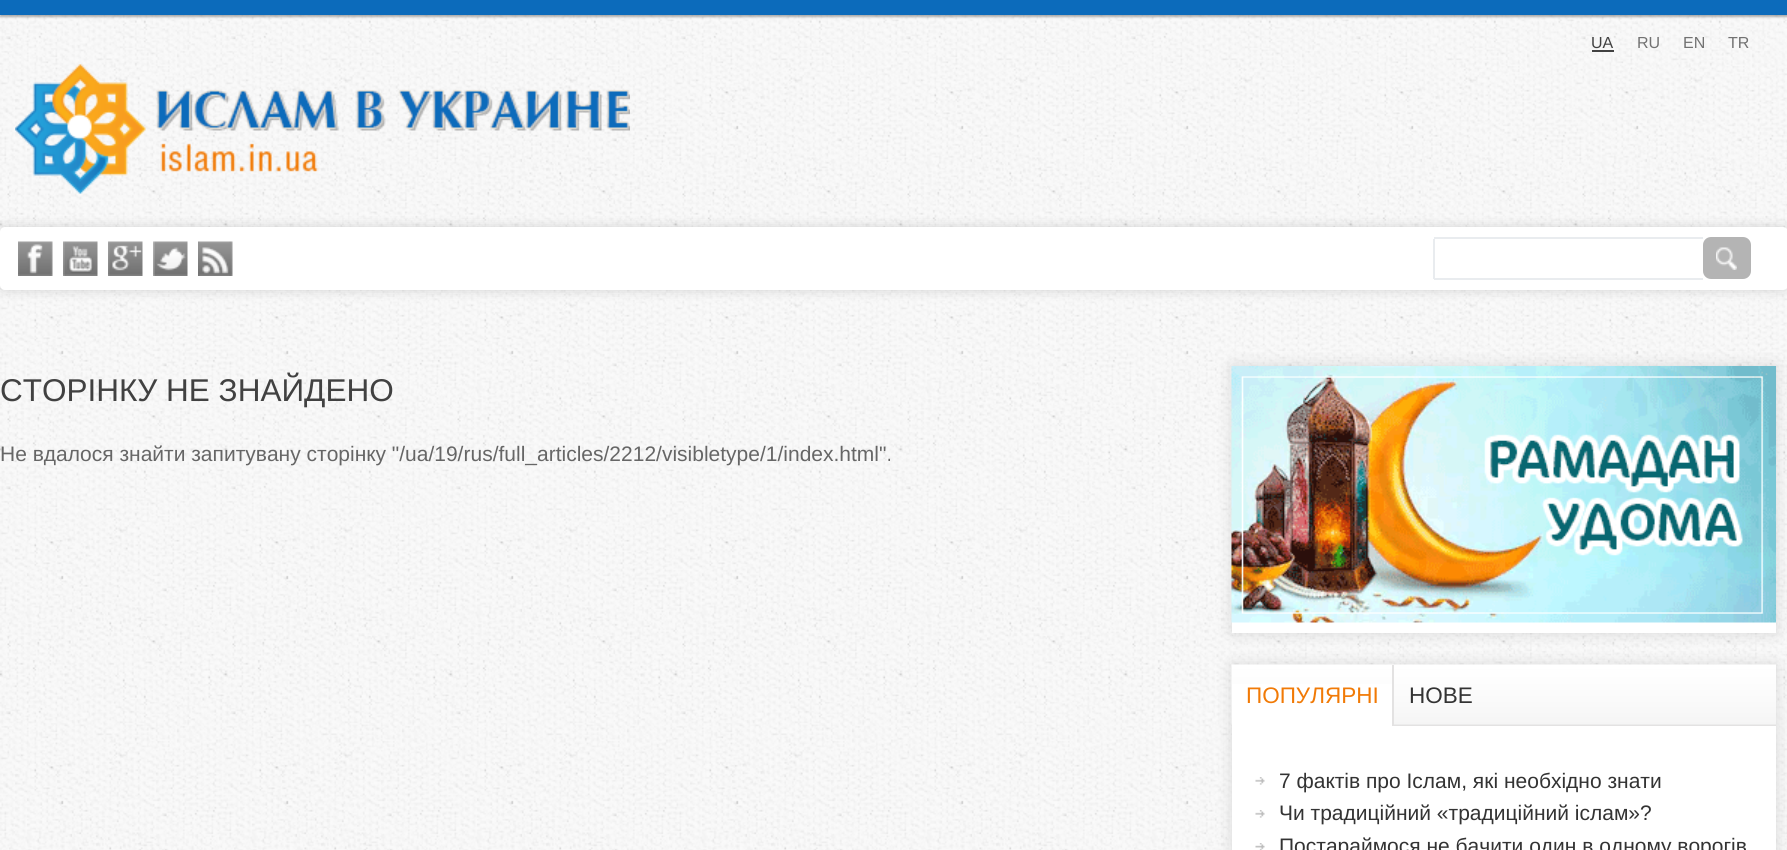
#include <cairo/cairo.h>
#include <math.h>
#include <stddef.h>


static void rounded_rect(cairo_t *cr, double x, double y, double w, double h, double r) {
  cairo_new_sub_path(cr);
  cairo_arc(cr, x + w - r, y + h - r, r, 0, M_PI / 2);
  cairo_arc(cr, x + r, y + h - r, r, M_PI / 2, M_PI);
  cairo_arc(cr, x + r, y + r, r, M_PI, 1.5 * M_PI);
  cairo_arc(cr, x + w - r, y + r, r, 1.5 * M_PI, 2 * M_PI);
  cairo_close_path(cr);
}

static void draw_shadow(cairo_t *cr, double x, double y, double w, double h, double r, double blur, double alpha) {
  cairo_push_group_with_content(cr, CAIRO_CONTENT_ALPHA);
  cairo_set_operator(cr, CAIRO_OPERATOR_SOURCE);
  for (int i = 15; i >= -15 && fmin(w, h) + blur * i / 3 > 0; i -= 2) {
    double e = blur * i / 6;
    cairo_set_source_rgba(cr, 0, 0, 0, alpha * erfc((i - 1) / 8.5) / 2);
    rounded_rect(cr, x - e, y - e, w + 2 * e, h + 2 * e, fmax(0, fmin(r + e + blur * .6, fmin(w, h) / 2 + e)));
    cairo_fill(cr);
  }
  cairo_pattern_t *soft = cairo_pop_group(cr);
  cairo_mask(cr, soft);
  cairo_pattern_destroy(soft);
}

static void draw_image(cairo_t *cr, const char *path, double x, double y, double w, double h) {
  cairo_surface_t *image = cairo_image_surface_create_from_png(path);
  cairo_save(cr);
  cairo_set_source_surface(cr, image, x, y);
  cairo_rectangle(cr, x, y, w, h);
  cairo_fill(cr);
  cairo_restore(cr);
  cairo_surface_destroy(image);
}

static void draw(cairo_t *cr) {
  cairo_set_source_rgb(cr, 1, 1, 1);
  cairo_paint(cr);
  draw_image(cr, "images/1.png", 0, 15, 1787, 835);
  cairo_set_source_rgb(cr, 0, 0, 0);
  draw_shadow(cr, 0, 2, 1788, 15, 0, 1, 0.3);
  cairo_set_source_rgb(cr, 12 / 255.0, 107 / 255.0, 187 / 255.0);
  cairo_rectangle(cr, 0, 0, 1787, 15);
  cairo_fill(cr);
  cairo_set_source_rgb(cr, 65 / 255.0, 65 / 255.0, 65 / 255.0);
  cairo_rectangle(cr, 1592, 50, 22, 2);
  cairo_fill(cr);
  draw_image(cr, "images/2.png", 15, 64, 615, 130);
  cairo_set_source_rgb(cr, 0, 0, 0);
  draw_shadow(cr, 0, 227, 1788, 63, 5, 6, 0.15);
  cairo_set_source_rgb(cr, 1, 1, 1);
  rounded_rect(cr, 0, 227, 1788, 63, 5);
  cairo_fill(cr);
  draw_image(cr, "images/3.png", 18, 241, 35, 35);
  draw_image(cr, "images/4.png", 63, 241, 35, 35);
  draw_image(cr, "images/5.png", 108, 241, 35, 35);
  draw_image(cr, "images/6.png", 153, 241, 35, 35);
  draw_image(cr, "images/7.png", 198, 241, 35, 35);
  cairo_set_source_rgb(cr, 233 / 255.0, 236 / 255.0, 239 / 255.0);
  cairo_rectangle(cr, 1434, 237, 269, 2);
  cairo_fill(cr);
  cairo_rectangle(cr, 1434, 278, 269, 2);
  cairo_fill(cr);
  cairo_rectangle(cr, 1433, 239, 2, 40);
  cairo_fill(cr);
  cairo_set_source_rgb(cr, 180 / 255.0, 180 / 255.0, 180 / 255.0);
  rounded_rect(cr, 1703, 237, 48, 42, 8);
  cairo_fill(cr);
  draw_image(cr, "images/8.png", 1716, 247, 21, 23);
  cairo_set_source_rgb(cr, 0, 0, 0);
  draw_shadow(cr, 1232, 366, 544, 267, 0, 7.5, 0.13);
  cairo_set_source_rgb(cr, 1, 1, 1);
  cairo_rectangle(cr, 1232, 622, 544, 11);
  cairo_fill(cr);
  draw_image(cr, "images/9.png", 1231, 366, 545, 257);
  cairo_set_source_rgb(cr, 0, 0, 0);
  draw_shadow(cr, 1232, 665, 544, 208, 0, 7.5, 0.13);
  cairo_set_source_rgb(cr, 1, 1, 1);
  cairo_rectangle(cr, 1232, 726, 544, 124);
  cairo_fill(cr);
  draw_image(cr, "images/10.png", 1231, 664, 545, 62);
  cairo_rectangle(cr, 1232, 684, 160, 42);
  cairo_fill(cr);
  cairo_set_source_rgb(cr, 227 / 255.0, 226 / 255.0, 226 / 255.0);
  cairo_rectangle(cr, 1392, 665, 2, 61);
  cairo_fill(cr);
  draw_image(cr, "images/11.png", 1255, 777, 10, 8);
  draw_image(cr, "images/11.png", 1255, 810, 10, 8);
  draw_image(cr, "images/12.png", 1255, 843, 10, 7);
  cairo_select_font_face(cr, "Liberation Sans", CAIRO_FONT_SLANT_NORMAL, CAIRO_FONT_WEIGHT_NORMAL);
  cairo_set_font_size(cr, 16);
  cairo_set_source_rgb(cr, 65 / 255.0, 65 / 255.0, 65 / 255.0);
  cairo_move_to(cr, 1591, 48);
  cairo_show_text(cr, "UA");
  cairo_set_source_rgb(cr, 114 / 255.0, 114 / 255.0, 114 / 255.0);
  cairo_move_to(cr, 1637, 48);
  cairo_show_text(cr, "RU");
  cairo_move_to(cr, 1683, 48);
  cairo_show_text(cr, "EN");
  cairo_move_to(cr, 1728, 48);
  cairo_show_text(cr, "TR");
  cairo_set_font_size(cr, 31.5);
  cairo_set_source_rgb(cr, 65 / 255.0, 65 / 255.0, 65 / 255.0);
  cairo_move_to(cr, 0, 401);
  cairo_show_text(cr, "СТОРІНКУ НЕ ЗНАЙДЕНО");
  cairo_set_font_size(cr, 21);
  cairo_set_source_rgb(cr, 102 / 255.0, 102 / 255.0, 102 / 255.0);
  cairo_move_to(cr, 0, 461);
  cairo_show_text(cr, "Не вдалося знайти запитувану сторінку \"/ua/19/rus/full_articles/2212/visibletype/1/index.html\".");
  cairo_set_font_size(cr, 22.5);
  cairo_set_source_rgb(cr, 241 / 255.0, 122 / 255.0, 6 / 255.0);
  cairo_move_to(cr, 1246, 703);
  cairo_show_text(cr, "ПОПУЛЯРНІ");
  cairo_set_source_rgb(cr, 51 / 255.0, 51 / 255.0, 51 / 255.0);
  cairo_move_to(cr, 1409, 703);
  cairo_show_text(cr, "НОВЕ");
  cairo_set_font_size(cr, 21);
  cairo_move_to(cr, 1279, 788);
  cairo_show_text(cr, "7 фактів про Іслам, які необхідно знати");
  cairo_move_to(cr, 1279, 820);
  cairo_show_text(cr, "Чи традиційний «традиційний іслам»?");
  cairo_move_to(cr, 1279, 853);
  cairo_show_text(cr, "Постараймося не бачити один в одному ворогів");
}

int main(void) {
  cairo_surface_t *surface = cairo_image_surface_create(CAIRO_FORMAT_RGB24, 1787, 850);
  cairo_t *cr = cairo_create(surface);
  cairo_font_options_t *options = cairo_font_options_create();
  cairo_font_options_set_hint_metrics(options, CAIRO_HINT_METRICS_OFF);
  cairo_font_options_set_hint_style(options, CAIRO_HINT_STYLE_NONE);
  cairo_set_font_options(cr, options);
  cairo_set_miter_limit(cr, 4);
  draw(cr);
  cairo_surface_write_to_png(surface, "out.png");
  cairo_font_options_destroy(options);
  cairo_destroy(cr);
  cairo_surface_destroy(surface);
  return 0;
}
